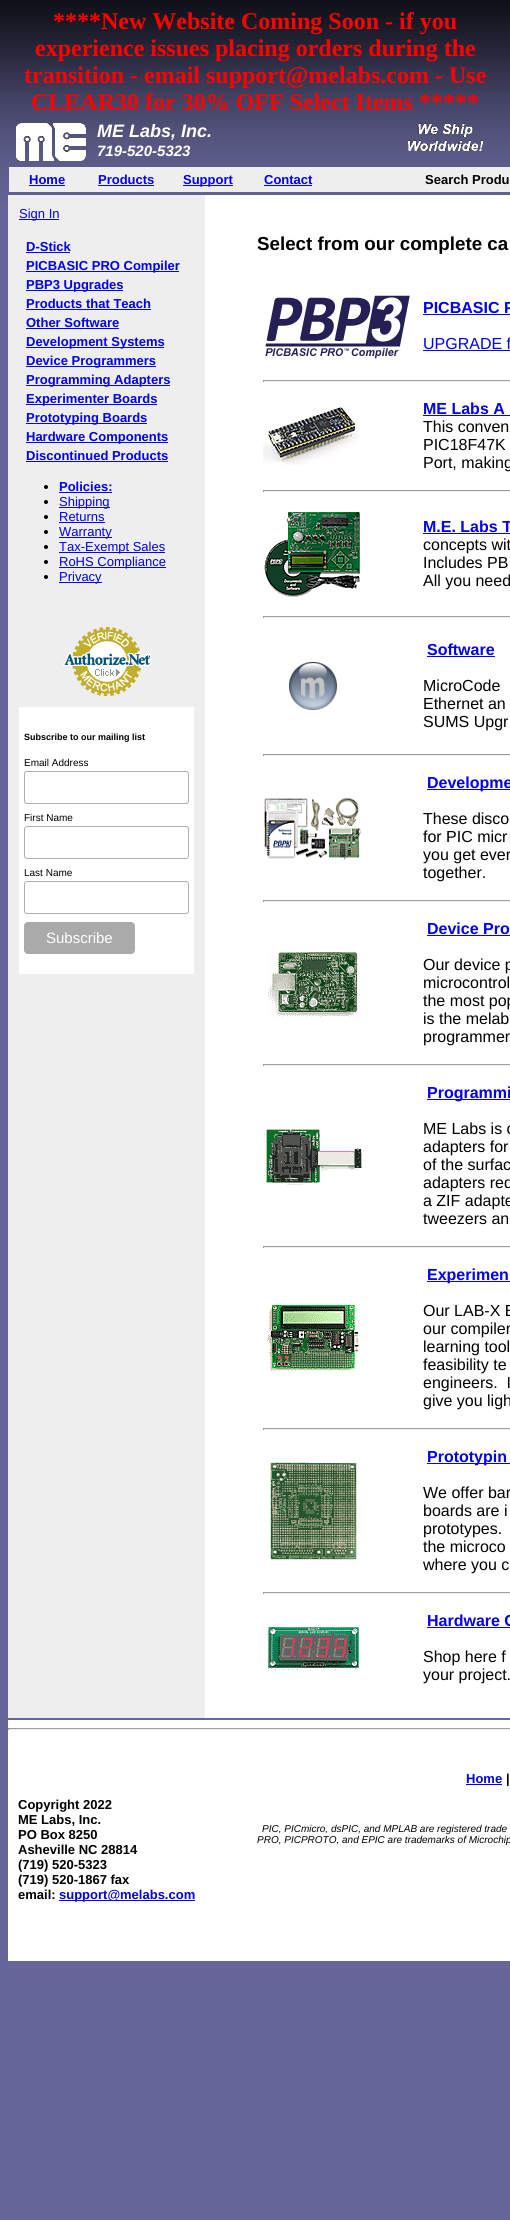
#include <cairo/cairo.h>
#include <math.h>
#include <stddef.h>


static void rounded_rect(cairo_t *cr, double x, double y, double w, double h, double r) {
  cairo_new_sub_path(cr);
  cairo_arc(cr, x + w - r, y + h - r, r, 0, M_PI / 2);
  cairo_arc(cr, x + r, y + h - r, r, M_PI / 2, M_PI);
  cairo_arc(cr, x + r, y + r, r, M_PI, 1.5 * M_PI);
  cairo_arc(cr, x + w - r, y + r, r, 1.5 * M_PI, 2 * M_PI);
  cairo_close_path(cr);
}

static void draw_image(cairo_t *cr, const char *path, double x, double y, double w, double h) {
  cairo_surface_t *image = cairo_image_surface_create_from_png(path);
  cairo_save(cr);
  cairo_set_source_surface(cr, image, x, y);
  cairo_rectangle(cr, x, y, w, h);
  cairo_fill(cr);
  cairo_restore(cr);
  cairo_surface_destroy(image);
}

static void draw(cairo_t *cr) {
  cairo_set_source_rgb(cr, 102 / 255.0, 102 / 255.0, 153 / 255.0);
  cairo_paint(cr);
  draw_image(cr, "images/1.png", 0, 0, 510, 206);
  draw_image(cr, "images/2.png", 16, 123, 70, 38);
  draw_image(cr, "images/3.png", 408, 123, 76, 28);
  cairo_set_source_rgb(cr, 238 / 255.0, 238 / 255.0, 238 / 255.0);
  cairo_rectangle(cr, 9, 167, 501, 25);
  cairo_fill(cr);
  cairo_set_source_rgb(cr, 0, 0, 238 / 255.0);
  cairo_rectangle(cr, 29, 185, 36, 1);
  cairo_fill(cr);
  cairo_rectangle(cr, 98, 185, 56, 1);
  cairo_fill(cr);
  cairo_rectangle(cr, 183, 185, 50, 1);
  cairo_fill(cr);
  cairo_rectangle(cr, 264, 185, 48, 1);
  cairo_fill(cr);
  cairo_set_source_rgb(cr, 238 / 255.0, 238 / 255.0, 238 / 255.0);
  cairo_rectangle(cr, 8, 195, 197, 1523);
  cairo_fill(cr);
  cairo_set_source_rgb(cr, 0, 0, 238 / 255.0);
  cairo_rectangle(cr, 19, 219, 40, 1);
  cairo_fill(cr);
  cairo_rectangle(cr, 26, 252, 44, 1);
  cairo_fill(cr);
  cairo_rectangle(cr, 26, 271, 153, 1);
  cairo_fill(cr);
  cairo_rectangle(cr, 26, 290, 97, 1);
  cairo_fill(cr);
  cairo_rectangle(cr, 26, 309, 125, 1);
  cairo_fill(cr);
  cairo_rectangle(cr, 26, 328, 93, 1);
  cairo_fill(cr);
  cairo_rectangle(cr, 26, 347, 138, 1);
  cairo_fill(cr);
  cairo_rectangle(cr, 26, 366, 130, 1);
  cairo_fill(cr);
  cairo_rectangle(cr, 26, 385, 144, 1);
  cairo_fill(cr);
  cairo_rectangle(cr, 26, 404, 131, 1);
  cairo_fill(cr);
  cairo_rectangle(cr, 26, 423, 121, 1);
  cairo_fill(cr);
  cairo_rectangle(cr, 26, 442, 142, 1);
  cairo_fill(cr);
  cairo_rectangle(cr, 26, 461, 142, 1);
  cairo_fill(cr);
  cairo_set_source_rgb(cr, 0, 0, 0);
  cairo_arc(cr, 46, 487, 2, 0, 2 * M_PI);
  cairo_fill(cr);
  cairo_set_source_rgb(cr, 0, 0, 238 / 255.0);
  cairo_rectangle(cr, 59, 492, 53, 1);
  cairo_fill(cr);
  cairo_set_source_rgb(cr, 0, 0, 0);
  cairo_arc(cr, 46, 502, 2, 0, 2 * M_PI);
  cairo_fill(cr);
  cairo_set_source_rgb(cr, 0, 0, 238 / 255.0);
  cairo_rectangle(cr, 59, 507, 51, 1);
  cairo_fill(cr);
  cairo_set_source_rgb(cr, 0, 0, 0);
  cairo_arc(cr, 46, 517, 2, 0, 2 * M_PI);
  cairo_fill(cr);
  cairo_set_source_rgb(cr, 0, 0, 238 / 255.0);
  cairo_rectangle(cr, 59, 522, 46, 1);
  cairo_fill(cr);
  cairo_set_source_rgb(cr, 0, 0, 0);
  cairo_arc(cr, 46, 532, 2, 0, 2 * M_PI);
  cairo_fill(cr);
  cairo_set_source_rgb(cr, 0, 0, 238 / 255.0);
  cairo_rectangle(cr, 59, 537, 53, 1);
  cairo_fill(cr);
  cairo_set_source_rgb(cr, 0, 0, 0);
  cairo_arc(cr, 46, 547, 2, 0, 2 * M_PI);
  cairo_fill(cr);
  cairo_set_source_rgb(cr, 0, 0, 238 / 255.0);
  cairo_rectangle(cr, 59, 552, 106, 1);
  cairo_fill(cr);
  cairo_set_source_rgb(cr, 0, 0, 0);
  cairo_arc(cr, 46, 562, 2, 0, 2 * M_PI);
  cairo_fill(cr);
  cairo_set_source_rgb(cr, 0, 0, 238 / 255.0);
  cairo_rectangle(cr, 59, 567, 107, 1);
  cairo_fill(cr);
  cairo_set_source_rgb(cr, 0, 0, 0);
  cairo_arc(cr, 46, 577, 2, 0, 2 * M_PI);
  cairo_fill(cr);
  cairo_set_source_rgb(cr, 0, 0, 238 / 255.0);
  cairo_rectangle(cr, 59, 582, 43, 1);
  cairo_fill(cr);
  draw_image(cr, "images/4.png", 63, 627, 88, 69);
  cairo_set_source_rgb(cr, 1, 1, 1);
  cairo_rectangle(cr, 19, 707, 175, 267);
  cairo_fill(cr);
  rounded_rect(cr, 24.5, 771.5, 164, 32, 2.5);
  cairo_set_source_rgb(cr, 171 / 255.0, 176 / 255.0, 178 / 255.0);
  cairo_set_line_width(cr, 1);
  cairo_stroke(cr);
  rounded_rect(cr, 24.5, 826.5, 164, 32, 2.5);
  cairo_stroke(cr);
  rounded_rect(cr, 24.5, 881.5, 164, 32, 2.5);
  cairo_stroke(cr);
  cairo_set_source_rgb(cr, 170 / 255.0, 170 / 255.0, 170 / 255.0);
  rounded_rect(cr, 24, 922, 111, 32, 4);
  cairo_fill(cr);
  cairo_set_source_rgb(cr, 1, 1, 1);
  cairo_rectangle(cr, 205, 195, 305, 1523);
  cairo_fill(cr);
  draw_image(cr, "images/5.png", 265, 295, 145, 64);
  cairo_set_source_rgb(cr, 0, 0, 238 / 255.0);
  cairo_rectangle(cr, 423, 314, 87, 1);
  cairo_fill(cr);
  cairo_rectangle(cr, 423, 350, 87, 1);
  cairo_fill(cr);
  cairo_set_source_rgb(cr, 159 / 255.0, 159 / 255.0, 159 / 255.0);
  cairo_rectangle(cr, 263, 380, 247, 1);
  cairo_fill(cr);
  cairo_set_source_rgb(cr, 238 / 255.0, 238 / 255.0, 238 / 255.0);
  cairo_rectangle(cr, 263, 381, 247, 1);
  cairo_fill(cr);
  cairo_set_source_rgb(cr, 159 / 255.0, 159 / 255.0, 159 / 255.0);
  cairo_rectangle(cr, 263, 380, 1, 2);
  cairo_fill(cr);
  draw_image(cr, "images/6.png", 263, 407, 97, 59);
  cairo_set_source_rgb(cr, 0, 0, 238 / 255.0);
  cairo_rectangle(cr, 423, 415, 87, 1);
  cairo_fill(cr);
  cairo_set_source_rgb(cr, 159 / 255.0, 159 / 255.0, 159 / 255.0);
  cairo_rectangle(cr, 263, 490, 247, 1);
  cairo_fill(cr);
  cairo_set_source_rgb(cr, 238 / 255.0, 238 / 255.0, 238 / 255.0);
  cairo_rectangle(cr, 263, 491, 247, 1);
  cairo_fill(cr);
  cairo_set_source_rgb(cr, 159 / 255.0, 159 / 255.0, 159 / 255.0);
  cairo_rectangle(cr, 263, 490, 1, 2);
  cairo_fill(cr);
  draw_image(cr, "images/7.png", 264, 511, 97, 86);
  cairo_set_source_rgb(cr, 0, 0, 238 / 255.0);
  cairo_rectangle(cr, 423, 533, 87, 1);
  cairo_fill(cr);
  cairo_set_source_rgb(cr, 159 / 255.0, 159 / 255.0, 159 / 255.0);
  cairo_rectangle(cr, 263, 616, 247, 1);
  cairo_fill(cr);
  cairo_set_source_rgb(cr, 238 / 255.0, 238 / 255.0, 238 / 255.0);
  cairo_rectangle(cr, 263, 617, 247, 1);
  cairo_fill(cr);
  cairo_set_source_rgb(cr, 159 / 255.0, 159 / 255.0, 159 / 255.0);
  cairo_rectangle(cr, 263, 616, 1, 2);
  cairo_fill(cr);
  draw_image(cr, "images/8.png", 289, 662, 48, 48);
  cairo_set_source_rgb(cr, 0, 0, 238 / 255.0);
  cairo_rectangle(cr, 427, 656, 68, 1);
  cairo_fill(cr);
  cairo_set_source_rgb(cr, 159 / 255.0, 159 / 255.0, 159 / 255.0);
  cairo_rectangle(cr, 263, 754, 247, 1);
  cairo_fill(cr);
  cairo_set_source_rgb(cr, 238 / 255.0, 238 / 255.0, 238 / 255.0);
  cairo_rectangle(cr, 263, 755, 247, 1);
  cairo_fill(cr);
  cairo_set_source_rgb(cr, 159 / 255.0, 159 / 255.0, 159 / 255.0);
  cairo_rectangle(cr, 263, 754, 1, 2);
  cairo_fill(cr);
  draw_image(cr, "images/9.png", 264, 797, 98, 63);
  cairo_set_source_rgb(cr, 0, 0, 238 / 255.0);
  cairo_rectangle(cr, 427, 789, 83, 1);
  cairo_fill(cr);
  cairo_set_source_rgb(cr, 159 / 255.0, 159 / 255.0, 159 / 255.0);
  cairo_rectangle(cr, 263, 900, 247, 1);
  cairo_fill(cr);
  cairo_set_source_rgb(cr, 238 / 255.0, 238 / 255.0, 238 / 255.0);
  cairo_rectangle(cr, 263, 901, 247, 1);
  cairo_fill(cr);
  cairo_set_source_rgb(cr, 159 / 255.0, 159 / 255.0, 159 / 255.0);
  cairo_rectangle(cr, 263, 900, 1, 2);
  cairo_fill(cr);
  draw_image(cr, "images/10.png", 268, 952, 90, 66);
  cairo_set_source_rgb(cr, 0, 0, 238 / 255.0);
  cairo_rectangle(cr, 427, 935, 83, 1);
  cairo_fill(cr);
  cairo_set_source_rgb(cr, 159 / 255.0, 159 / 255.0, 159 / 255.0);
  cairo_rectangle(cr, 263, 1064, 247, 1);
  cairo_fill(cr);
  cairo_set_source_rgb(cr, 238 / 255.0, 238 / 255.0, 238 / 255.0);
  cairo_rectangle(cr, 263, 1065, 247, 1);
  cairo_fill(cr);
  cairo_set_source_rgb(cr, 159 / 255.0, 159 / 255.0, 159 / 255.0);
  cairo_rectangle(cr, 263, 1064, 1, 2);
  cairo_fill(cr);
  draw_image(cr, "images/11.png", 266, 1129, 96, 56);
  cairo_set_source_rgb(cr, 0, 0, 238 / 255.0);
  cairo_rectangle(cr, 427, 1099, 83, 1);
  cairo_fill(cr);
  cairo_set_source_rgb(cr, 159 / 255.0, 159 / 255.0, 159 / 255.0);
  cairo_rectangle(cr, 263, 1246, 247, 1);
  cairo_fill(cr);
  cairo_set_source_rgb(cr, 238 / 255.0, 238 / 255.0, 238 / 255.0);
  cairo_rectangle(cr, 263, 1247, 247, 1);
  cairo_fill(cr);
  cairo_set_source_rgb(cr, 159 / 255.0, 159 / 255.0, 159 / 255.0);
  cairo_rectangle(cr, 263, 1246, 1, 2);
  cairo_fill(cr);
  draw_image(cr, "images/12.png", 267, 1305, 92, 66);
  cairo_set_source_rgb(cr, 0, 0, 238 / 255.0);
  cairo_rectangle(cr, 427, 1281, 83, 1);
  cairo_fill(cr);
  cairo_set_source_rgb(cr, 159 / 255.0, 159 / 255.0, 159 / 255.0);
  cairo_rectangle(cr, 263, 1428, 247, 1);
  cairo_fill(cr);
  cairo_set_source_rgb(cr, 238 / 255.0, 238 / 255.0, 238 / 255.0);
  cairo_rectangle(cr, 263, 1429, 247, 1);
  cairo_fill(cr);
  cairo_set_source_rgb(cr, 159 / 255.0, 159 / 255.0, 159 / 255.0);
  cairo_rectangle(cr, 263, 1428, 1, 2);
  cairo_fill(cr);
  draw_image(cr, "images/13.png", 270, 1462, 87, 98);
  cairo_set_source_rgb(cr, 0, 0, 238 / 255.0);
  cairo_rectangle(cr, 427, 1463, 83, 1);
  cairo_fill(cr);
  cairo_set_source_rgb(cr, 159 / 255.0, 159 / 255.0, 159 / 255.0);
  cairo_rectangle(cr, 263, 1592, 247, 1);
  cairo_fill(cr);
  cairo_set_source_rgb(cr, 238 / 255.0, 238 / 255.0, 238 / 255.0);
  cairo_rectangle(cr, 263, 1593, 247, 1);
  cairo_fill(cr);
  cairo_set_source_rgb(cr, 159 / 255.0, 159 / 255.0, 159 / 255.0);
  cairo_rectangle(cr, 263, 1592, 1, 2);
  cairo_fill(cr);
  draw_image(cr, "images/14.png", 267, 1627, 92, 43);
  cairo_set_source_rgb(cr, 0, 0, 238 / 255.0);
  cairo_rectangle(cr, 427, 1627, 83, 1);
  cairo_fill(cr);
  cairo_set_source_rgb(cr, 1, 1, 1);
  cairo_rectangle(cr, 8, 1720, 502, 241);
  cairo_fill(cr);
  cairo_set_source_rgb(cr, 159 / 255.0, 159 / 255.0, 159 / 255.0);
  cairo_rectangle(cr, 8, 1728, 502, 1);
  cairo_fill(cr);
  cairo_set_source_rgb(cr, 238 / 255.0, 238 / 255.0, 238 / 255.0);
  cairo_rectangle(cr, 8, 1729, 502, 1);
  cairo_fill(cr);
  cairo_set_source_rgb(cr, 159 / 255.0, 159 / 255.0, 159 / 255.0);
  cairo_rectangle(cr, 8, 1728, 1, 2);
  cairo_fill(cr);
  cairo_set_source_rgb(cr, 0, 0, 238 / 255.0);
  cairo_rectangle(cr, 59, 1900, 136, 1);
  cairo_fill(cr);
  cairo_rectangle(cr, 466, 1784, 36, 1);
  cairo_fill(cr);
  cairo_select_font_face(cr, "Liberation Serif", CAIRO_FONT_SLANT_NORMAL, CAIRO_FONT_WEIGHT_BOLD);
  cairo_set_font_size(cr, 24);
  cairo_set_source_rgb(cr, 1, 0, 0);
  cairo_move_to(cr, 53, 29);
  cairo_show_text(cr, "****New Website Coming Soon - if you");
  cairo_move_to(cr, 35, 56);
  cairo_show_text(cr, "experience issues placing orders during the");
  cairo_move_to(cr, 24, 83);
  cairo_show_text(cr, "transition - email support@melabs.com - Use");
  cairo_move_to(cr, 31, 110);
  cairo_show_text(cr, "CLEAR30 for 30% OFF Select Items *****");
  cairo_select_font_face(cr, "Liberation Sans", CAIRO_FONT_SLANT_ITALIC, CAIRO_FONT_WEIGHT_BOLD);
  cairo_set_font_size(cr, 18);
  cairo_set_source_rgb(cr, 1, 1, 1);
  cairo_move_to(cr, 97, 137);
  cairo_show_text(cr, "ME Labs, Inc.");
  cairo_set_font_size(cr, 15);
  cairo_move_to(cr, 97, 156);
  cairo_show_text(cr, "719-520-5323");
  cairo_select_font_face(cr, "Liberation Sans", CAIRO_FONT_SLANT_NORMAL, CAIRO_FONT_WEIGHT_BOLD);
  cairo_set_font_size(cr, 13);
  cairo_set_source_rgb(cr, 0, 0, 238 / 255.0);
  cairo_move_to(cr, 29, 184);
  cairo_show_text(cr, "Home");
  cairo_move_to(cr, 98, 184);
  cairo_show_text(cr, "Products");
  cairo_move_to(cr, 183, 184);
  cairo_show_text(cr, "Support");
  cairo_move_to(cr, 264, 184);
  cairo_show_text(cr, "Contact");
  cairo_set_source_rgb(cr, 0, 0, 0);
  cairo_move_to(cr, 425, 184);
  cairo_show_text(cr, "Search Produ");
  cairo_select_font_face(cr, "Liberation Sans", CAIRO_FONT_SLANT_NORMAL, CAIRO_FONT_WEIGHT_NORMAL);
  cairo_set_source_rgb(cr, 0, 0, 238 / 255.0);
  cairo_move_to(cr, 19, 218);
  cairo_show_text(cr, "Sign In");
  cairo_select_font_face(cr, "Liberation Sans", CAIRO_FONT_SLANT_NORMAL, CAIRO_FONT_WEIGHT_BOLD);
  cairo_move_to(cr, 26, 251);
  cairo_show_text(cr, "D-Stick");
  cairo_move_to(cr, 26, 270);
  cairo_show_text(cr, "PICBASIC PRO Compiler");
  cairo_move_to(cr, 26, 289);
  cairo_show_text(cr, "PBP3 Upgrades");
  cairo_move_to(cr, 26, 308);
  cairo_show_text(cr, "Products that Teach");
  cairo_move_to(cr, 26, 327);
  cairo_show_text(cr, "Other Software");
  cairo_move_to(cr, 26, 346);
  cairo_show_text(cr, "Development Systems");
  cairo_move_to(cr, 26, 365);
  cairo_show_text(cr, "Device Programmers");
  cairo_move_to(cr, 26, 384);
  cairo_show_text(cr, "Programming Adapters");
  cairo_move_to(cr, 26, 403);
  cairo_show_text(cr, "Experimenter Boards");
  cairo_move_to(cr, 26, 422);
  cairo_show_text(cr, "Prototyping Boards");
  cairo_move_to(cr, 26, 441);
  cairo_show_text(cr, "Hardware Components");
  cairo_move_to(cr, 26, 460);
  cairo_show_text(cr, "Discontinued Products");
  cairo_move_to(cr, 59, 491);
  cairo_show_text(cr, "Policies:");
  cairo_select_font_face(cr, "Liberation Sans", CAIRO_FONT_SLANT_NORMAL, CAIRO_FONT_WEIGHT_NORMAL);
  cairo_move_to(cr, 59, 506);
  cairo_show_text(cr, "Shipping");
  cairo_move_to(cr, 59, 521);
  cairo_show_text(cr, "Returns");
  cairo_move_to(cr, 59, 536);
  cairo_show_text(cr, "Warranty");
  cairo_move_to(cr, 59, 551);
  cairo_show_text(cr, "Tax-Exempt Sales");
  cairo_move_to(cr, 59, 566);
  cairo_show_text(cr, "RoHS Compliance");
  cairo_move_to(cr, 59, 581);
  cairo_show_text(cr, "Privacy");
  cairo_select_font_face(cr, "Liberation Sans", CAIRO_FONT_SLANT_NORMAL, CAIRO_FONT_WEIGHT_BOLD);
  cairo_set_font_size(cr, 9);
  cairo_set_source_rgb(cr, 0, 0, 0);
  cairo_move_to(cr, 24, 740);
  cairo_show_text(cr, "Subscribe to our mailing list");
  cairo_select_font_face(cr, "Liberation Sans", CAIRO_FONT_SLANT_NORMAL, CAIRO_FONT_WEIGHT_NORMAL);
  cairo_set_font_size(cr, 10);
  cairo_move_to(cr, 24, 766);
  cairo_show_text(cr, "Email Address");
  cairo_move_to(cr, 24, 821);
  cairo_show_text(cr, "First Name");
  cairo_move_to(cr, 24, 876);
  cairo_show_text(cr, "Last Name");
  cairo_set_font_size(cr, 15);
  cairo_set_source_rgb(cr, 1, 1, 1);
  cairo_move_to(cr, 46, 943);
  cairo_show_text(cr, "Subscribe");
  cairo_select_font_face(cr, "Liberation Sans", CAIRO_FONT_SLANT_NORMAL, CAIRO_FONT_WEIGHT_BOLD);
  cairo_set_font_size(cr, 18.75);
  cairo_set_source_rgb(cr, 0, 0, 0);
  cairo_move_to(cr, 257, 250);
  cairo_show_text(cr, "Select from our complete ca");
  cairo_set_font_size(cr, 16);
  cairo_set_source_rgb(cr, 0, 0, 238 / 255.0);
  cairo_move_to(cr, 423, 313);
  cairo_show_text(cr, "PICBASIC P");
  cairo_select_font_face(cr, "Liberation Sans", CAIRO_FONT_SLANT_NORMAL, CAIRO_FONT_WEIGHT_NORMAL);
  cairo_move_to(cr, 423, 349);
  cairo_show_text(cr, "UPGRADE f");
  cairo_select_font_face(cr, "Liberation Sans", CAIRO_FONT_SLANT_NORMAL, CAIRO_FONT_WEIGHT_BOLD);
  cairo_move_to(cr, 423, 414);
  cairo_show_text(cr, "ME Labs A");
  cairo_select_font_face(cr, "Liberation Sans", CAIRO_FONT_SLANT_NORMAL, CAIRO_FONT_WEIGHT_NORMAL);
  cairo_set_source_rgb(cr, 0, 0, 0);
  cairo_move_to(cr, 423, 432);
  cairo_show_text(cr, "This conven");
  cairo_move_to(cr, 423, 450);
  cairo_show_text(cr, "PIC18F47K");
  cairo_move_to(cr, 423, 468);
  cairo_show_text(cr, "Port, making");
  cairo_select_font_face(cr, "Liberation Sans", CAIRO_FONT_SLANT_NORMAL, CAIRO_FONT_WEIGHT_BOLD);
  cairo_set_source_rgb(cr, 0, 0, 238 / 255.0);
  cairo_move_to(cr, 423, 532);
  cairo_show_text(cr, "M.E. Labs T");
  cairo_select_font_face(cr, "Liberation Sans", CAIRO_FONT_SLANT_NORMAL, CAIRO_FONT_WEIGHT_NORMAL);
  cairo_set_source_rgb(cr, 0, 0, 0);
  cairo_move_to(cr, 423, 550);
  cairo_show_text(cr, "concepts wit");
  cairo_move_to(cr, 423, 568);
  cairo_show_text(cr, "Includes PB");
  cairo_move_to(cr, 423, 586);
  cairo_show_text(cr, "All you need");
  cairo_select_font_face(cr, "Liberation Sans", CAIRO_FONT_SLANT_NORMAL, CAIRO_FONT_WEIGHT_BOLD);
  cairo_set_source_rgb(cr, 0, 0, 238 / 255.0);
  cairo_move_to(cr, 427, 655);
  cairo_show_text(cr, "Software");
  cairo_select_font_face(cr, "Liberation Sans", CAIRO_FONT_SLANT_NORMAL, CAIRO_FONT_WEIGHT_NORMAL);
  cairo_set_source_rgb(cr, 0, 0, 0);
  cairo_move_to(cr, 423, 691);
  cairo_show_text(cr, "MicroCode");
  cairo_move_to(cr, 423, 709);
  cairo_show_text(cr, "Ethernet an");
  cairo_move_to(cr, 423, 727);
  cairo_show_text(cr, "SUMS Upgr");
  cairo_select_font_face(cr, "Liberation Sans", CAIRO_FONT_SLANT_NORMAL, CAIRO_FONT_WEIGHT_BOLD);
  cairo_set_source_rgb(cr, 0, 0, 238 / 255.0);
  cairo_move_to(cr, 427, 788);
  cairo_show_text(cr, "Developme");
  cairo_select_font_face(cr, "Liberation Sans", CAIRO_FONT_SLANT_NORMAL, CAIRO_FONT_WEIGHT_NORMAL);
  cairo_set_source_rgb(cr, 0, 0, 0);
  cairo_move_to(cr, 423, 824);
  cairo_show_text(cr, "These disco");
  cairo_move_to(cr, 423, 842);
  cairo_show_text(cr, "for PIC micr");
  cairo_move_to(cr, 423, 860);
  cairo_show_text(cr, "you get ever");
  cairo_move_to(cr, 423, 878);
  cairo_show_text(cr, "together.");
  cairo_select_font_face(cr, "Liberation Sans", CAIRO_FONT_SLANT_NORMAL, CAIRO_FONT_WEIGHT_BOLD);
  cairo_set_source_rgb(cr, 0, 0, 238 / 255.0);
  cairo_move_to(cr, 427, 934);
  cairo_show_text(cr, "Device Pro");
  cairo_select_font_face(cr, "Liberation Sans", CAIRO_FONT_SLANT_NORMAL, CAIRO_FONT_WEIGHT_NORMAL);
  cairo_set_source_rgb(cr, 0, 0, 0);
  cairo_move_to(cr, 423, 970);
  cairo_show_text(cr, "Our device p");
  cairo_move_to(cr, 423, 988);
  cairo_show_text(cr, "microcontrol");
  cairo_move_to(cr, 423, 1006);
  cairo_show_text(cr, "the most pop");
  cairo_move_to(cr, 423, 1024);
  cairo_show_text(cr, "is the melab");
  cairo_move_to(cr, 423, 1042);
  cairo_show_text(cr, "programmer");
  cairo_select_font_face(cr, "Liberation Sans", CAIRO_FONT_SLANT_NORMAL, CAIRO_FONT_WEIGHT_BOLD);
  cairo_set_source_rgb(cr, 0, 0, 238 / 255.0);
  cairo_move_to(cr, 427, 1098);
  cairo_show_text(cr, "Programmi");
  cairo_select_font_face(cr, "Liberation Sans", CAIRO_FONT_SLANT_NORMAL, CAIRO_FONT_WEIGHT_NORMAL);
  cairo_set_source_rgb(cr, 0, 0, 0);
  cairo_move_to(cr, 423, 1134);
  cairo_show_text(cr, "ME Labs is c");
  cairo_move_to(cr, 423, 1152);
  cairo_show_text(cr, "adapters for");
  cairo_move_to(cr, 423, 1170);
  cairo_show_text(cr, "of the surfac");
  cairo_move_to(cr, 423, 1188);
  cairo_show_text(cr, "adapters req");
  cairo_move_to(cr, 423, 1206);
  cairo_show_text(cr, "a ZIF adapte");
  cairo_move_to(cr, 423, 1224);
  cairo_show_text(cr, "tweezers an");
  cairo_select_font_face(cr, "Liberation Sans", CAIRO_FONT_SLANT_NORMAL, CAIRO_FONT_WEIGHT_BOLD);
  cairo_set_source_rgb(cr, 0, 0, 238 / 255.0);
  cairo_move_to(cr, 427, 1280);
  cairo_show_text(cr, "Experimen");
  cairo_select_font_face(cr, "Liberation Sans", CAIRO_FONT_SLANT_NORMAL, CAIRO_FONT_WEIGHT_NORMAL);
  cairo_set_source_rgb(cr, 0, 0, 0);
  cairo_move_to(cr, 423, 1316);
  cairo_show_text(cr, "Our LAB-X E");
  cairo_move_to(cr, 423, 1334);
  cairo_show_text(cr, "our compiler");
  cairo_move_to(cr, 423, 1352);
  cairo_show_text(cr, "learning tool");
  cairo_move_to(cr, 423, 1370);
  cairo_show_text(cr, "feasibility te");
  cairo_move_to(cr, 423, 1388);
  cairo_show_text(cr, "engineers.  I");
  cairo_move_to(cr, 423, 1406);
  cairo_show_text(cr, "give you ligh");
  cairo_select_font_face(cr, "Liberation Sans", CAIRO_FONT_SLANT_NORMAL, CAIRO_FONT_WEIGHT_BOLD);
  cairo_set_source_rgb(cr, 0, 0, 238 / 255.0);
  cairo_move_to(cr, 427, 1462);
  cairo_show_text(cr, "Prototypin");
  cairo_select_font_face(cr, "Liberation Sans", CAIRO_FONT_SLANT_NORMAL, CAIRO_FONT_WEIGHT_NORMAL);
  cairo_set_source_rgb(cr, 0, 0, 0);
  cairo_move_to(cr, 423, 1498);
  cairo_show_text(cr, "We offer bar");
  cairo_move_to(cr, 423, 1516);
  cairo_show_text(cr, "boards are i");
  cairo_move_to(cr, 423, 1534);
  cairo_show_text(cr, "prototypes.");
  cairo_move_to(cr, 423, 1552);
  cairo_show_text(cr, "the microco");
  cairo_move_to(cr, 423, 1570);
  cairo_show_text(cr, "where you c");
  cairo_select_font_face(cr, "Liberation Sans", CAIRO_FONT_SLANT_NORMAL, CAIRO_FONT_WEIGHT_BOLD);
  cairo_set_source_rgb(cr, 0, 0, 238 / 255.0);
  cairo_move_to(cr, 427, 1626);
  cairo_show_text(cr, "Hardware C");
  cairo_select_font_face(cr, "Liberation Sans", CAIRO_FONT_SLANT_NORMAL, CAIRO_FONT_WEIGHT_NORMAL);
  cairo_set_source_rgb(cr, 0, 0, 0);
  cairo_move_to(cr, 423, 1662);
  cairo_show_text(cr, "Shop here f");
  cairo_move_to(cr, 423, 1680);
  cairo_show_text(cr, "your project.");
  cairo_select_font_face(cr, "Liberation Sans", CAIRO_FONT_SLANT_NORMAL, CAIRO_FONT_WEIGHT_BOLD);
  cairo_set_font_size(cr, 13);
  cairo_move_to(cr, 18, 1809);
  cairo_show_text(cr, "Copyright 2022");
  cairo_move_to(cr, 18, 1824);
  cairo_show_text(cr, "ME Labs, Inc.");
  cairo_move_to(cr, 18, 1839);
  cairo_show_text(cr, "PO Box 8250");
  cairo_move_to(cr, 18, 1854);
  cairo_show_text(cr, "Asheville NC 28814");
  cairo_move_to(cr, 18, 1869);
  cairo_show_text(cr, "(719) 520-5323");
  cairo_move_to(cr, 18, 1884);
  cairo_show_text(cr, "(719) 520-1867 fax");
  cairo_move_to(cr, 18, 1899);
  cairo_show_text(cr, "email:");
  cairo_set_source_rgb(cr, 0, 0, 238 / 255.0);
  cairo_move_to(cr, 59, 1899);
  cairo_show_text(cr, "support@melabs.com");
  cairo_move_to(cr, 466, 1783);
  cairo_show_text(cr, "Home");
  cairo_set_source_rgb(cr, 0, 0, 0);
  cairo_move_to(cr, 506, 1783);
  cairo_show_text(cr, "|");
  cairo_select_font_face(cr, "Liberation Sans", CAIRO_FONT_SLANT_ITALIC, CAIRO_FONT_WEIGHT_NORMAL);
  cairo_set_font_size(cr, 10);
  cairo_move_to(cr, 262, 1832);
  cairo_show_text(cr, "PIC, PICmicro, dsPIC, and MPLAB are registered trade");
  cairo_move_to(cr, 257, 1843);
  cairo_show_text(cr, "PRO, PICPROTO, and EPIC are trademarks of Microchip");
}

int main(void) {
  cairo_surface_t *surface = cairo_image_surface_create(CAIRO_FORMAT_RGB24, 510, 2220);
  cairo_t *cr = cairo_create(surface);
  cairo_font_options_t *options = cairo_font_options_create();
  cairo_font_options_set_hint_metrics(options, CAIRO_HINT_METRICS_OFF);
  cairo_font_options_set_hint_style(options, CAIRO_HINT_STYLE_NONE);
  cairo_set_font_options(cr, options);
  cairo_set_miter_limit(cr, 4);
  draw(cr);
  cairo_surface_write_to_png(surface, "out.png");
  cairo_font_options_destroy(options);
  cairo_destroy(cr);
  cairo_surface_destroy(surface);
  return 0;
}
